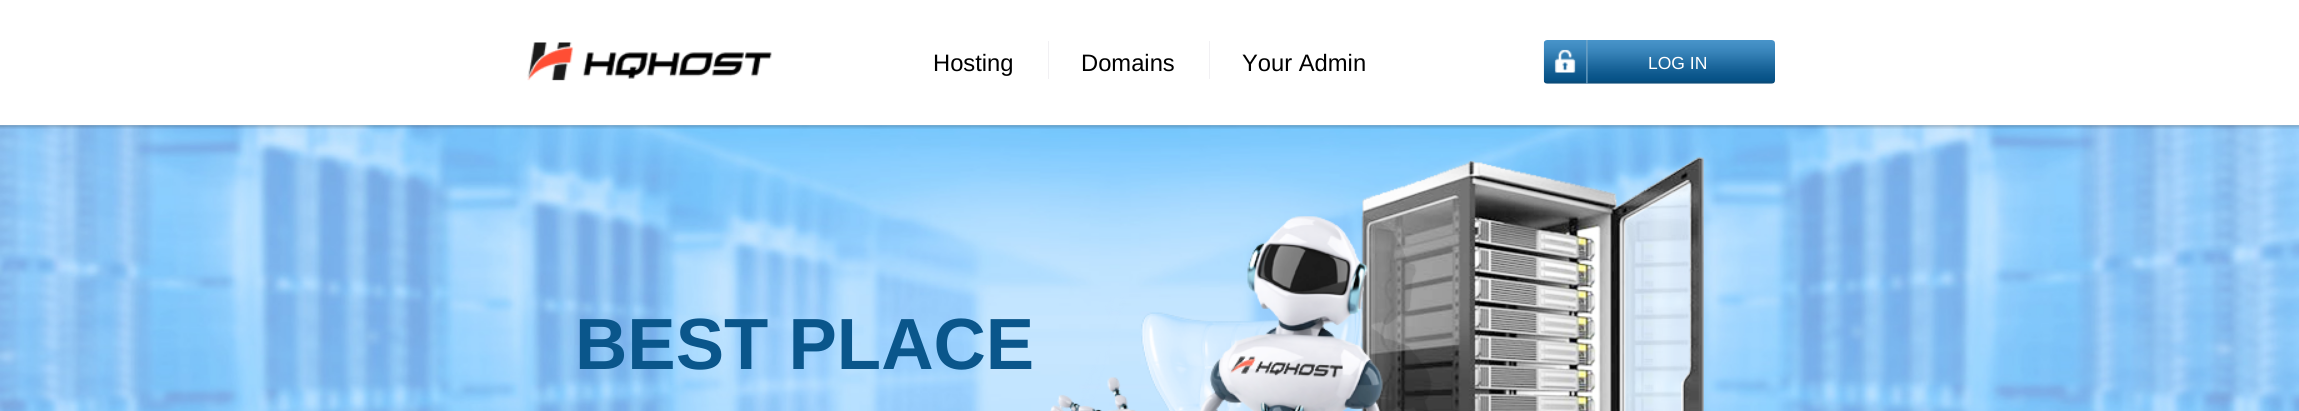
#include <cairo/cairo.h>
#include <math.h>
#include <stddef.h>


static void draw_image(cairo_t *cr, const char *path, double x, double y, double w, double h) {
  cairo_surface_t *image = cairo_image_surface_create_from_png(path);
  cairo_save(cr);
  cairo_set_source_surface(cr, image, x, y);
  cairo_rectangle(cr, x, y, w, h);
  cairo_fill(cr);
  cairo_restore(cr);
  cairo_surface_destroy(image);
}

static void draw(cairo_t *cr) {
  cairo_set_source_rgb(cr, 1, 1, 1);
  cairo_paint(cr);
  draw_image(cr, "images/5.png", 0, 125, 2299, 286);
  draw_image(cr, "images/1.png", 0, 125, 2299, 4);
  draw_image(cr, "images/2.png", 527, 42, 245, 39);
  cairo_set_source_rgb(cr, 241 / 255.0, 240 / 255.0, 243 / 255.0);
  cairo_rectangle(cr, 1048, 41, 1, 38);
  cairo_fill(cr);
  cairo_rectangle(cr, 1209, 41, 1, 38);
  cairo_fill(cr);
  draw_image(cr, "images/3.png", 1543, 40, 232, 44);
  draw_image(cr, "images/4.png", 1554, 40, 34, 44);
  draw_image(cr, "images/6.png", 1050, 157, 654, 254);
  cairo_select_font_face(cr, "Liberation Sans", CAIRO_FONT_SLANT_NORMAL, CAIRO_FONT_WEIGHT_NORMAL);
  cairo_set_font_size(cr, 23.75);
  cairo_set_source_rgb(cr, 0, 0, 0);
  cairo_move_to(cr, 933, 71);
  cairo_show_text(cr, "Hosting");
  cairo_move_to(cr, 1081, 71);
  cairo_show_text(cr, "Domains");
  cairo_move_to(cr, 1242, 71);
  cairo_show_text(cr, "Your Admin");
  cairo_set_font_size(cr, 17.5);
  cairo_set_source_rgb(cr, 1, 1, 1);
  cairo_move_to(cr, 1648, 69);
  cairo_show_text(cr, "LOG IN");
  cairo_select_font_face(cr, "Liberation Sans", CAIRO_FONT_SLANT_NORMAL, CAIRO_FONT_WEIGHT_BOLD);
  cairo_set_font_size(cr, 72.5);
  cairo_set_source_rgb(cr, 10 / 255.0, 86 / 255.0, 139 / 255.0);
  cairo_move_to(cr, 575, 369);
  cairo_show_text(cr, "BEST PLACE");
}

int main(void) {
  cairo_surface_t *surface = cairo_image_surface_create(CAIRO_FORMAT_RGB24, 2299, 411);
  cairo_t *cr = cairo_create(surface);
  cairo_font_options_t *options = cairo_font_options_create();
  cairo_font_options_set_hint_metrics(options, CAIRO_HINT_METRICS_OFF);
  cairo_font_options_set_hint_style(options, CAIRO_HINT_STYLE_NONE);
  cairo_set_font_options(cr, options);
  cairo_set_miter_limit(cr, 4);
  draw(cr);
  cairo_surface_write_to_png(surface, "out.png");
  cairo_font_options_destroy(options);
  cairo_destroy(cr);
  cairo_surface_destroy(surface);
  return 0;
}
